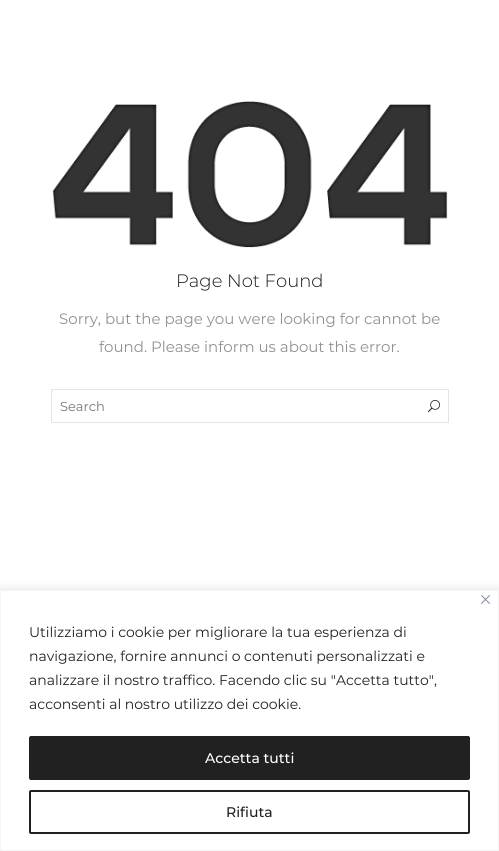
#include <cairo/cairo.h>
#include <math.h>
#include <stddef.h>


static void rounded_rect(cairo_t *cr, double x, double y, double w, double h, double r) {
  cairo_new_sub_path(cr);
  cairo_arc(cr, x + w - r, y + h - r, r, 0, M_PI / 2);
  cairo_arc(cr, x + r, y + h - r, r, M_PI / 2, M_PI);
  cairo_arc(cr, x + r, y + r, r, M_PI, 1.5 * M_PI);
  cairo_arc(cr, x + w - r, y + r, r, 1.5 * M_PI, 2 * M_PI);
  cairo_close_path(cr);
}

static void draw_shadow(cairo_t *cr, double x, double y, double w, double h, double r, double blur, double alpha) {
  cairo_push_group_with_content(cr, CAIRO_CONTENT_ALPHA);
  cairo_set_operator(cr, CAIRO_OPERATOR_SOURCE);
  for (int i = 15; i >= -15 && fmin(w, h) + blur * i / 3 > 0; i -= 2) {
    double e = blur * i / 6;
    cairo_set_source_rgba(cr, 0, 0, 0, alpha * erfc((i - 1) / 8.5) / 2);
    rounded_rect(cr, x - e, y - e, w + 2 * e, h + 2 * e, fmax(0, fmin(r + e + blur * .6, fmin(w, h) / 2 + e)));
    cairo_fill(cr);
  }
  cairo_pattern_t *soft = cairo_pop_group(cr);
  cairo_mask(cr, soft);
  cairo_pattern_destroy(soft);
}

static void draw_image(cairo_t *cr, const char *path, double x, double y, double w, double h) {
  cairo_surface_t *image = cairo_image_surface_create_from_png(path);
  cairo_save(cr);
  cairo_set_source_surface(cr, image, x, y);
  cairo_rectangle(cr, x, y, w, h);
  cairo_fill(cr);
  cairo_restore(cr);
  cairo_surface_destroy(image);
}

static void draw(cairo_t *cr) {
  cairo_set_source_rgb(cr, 1, 1, 1);
  cairo_paint(cr);
  draw_image(cr, "images/1.png", 52, 101, 396, 147);
  cairo_rectangle(cr, 51.5, 389.5, 397, 33);
  cairo_set_source_rgb(cr, 229 / 255.0, 229 / 255.0, 229 / 255.0);
  cairo_set_line_width(cr, 1);
  cairo_stroke(cr);
  draw_image(cr, "images/2.png", 428, 400, 12, 12);
  cairo_set_source_rgb(cr, 172 / 255.0, 171 / 255.0, 171 / 255.0);
  draw_shadow(cr, 0, 589, 499, 261, 0, 5, 0.3);
  cairo_set_source_rgb(cr, 1, 1, 1);
  cairo_rectangle(cr, 0.5, 590.5, 498, 260);
  cairo_fill_preserve(cr);
  cairo_set_source_rgb(cr, 244 / 255.0, 244 / 255.0, 244 / 255.0);
  cairo_stroke(cr);
  draw_image(cr, "images/3.png", 481, 595, 9, 9);
  cairo_set_source_rgb(cr, 33 / 255.0, 33 / 255.0, 33 / 255.0);
  rounded_rect(cr, 30, 737, 439, 42, 1);
  cairo_fill_preserve(cr);
  cairo_set_line_width(cr, 2);
  cairo_stroke(cr);
  rounded_rect(cr, 30, 791, 439, 42, 1);
  cairo_stroke(cr);
  cairo_select_font_face(cr, "Montserrat Light", CAIRO_FONT_SLANT_NORMAL, CAIRO_FONT_WEIGHT_NORMAL);
  cairo_set_font_size(cr, 18);
  cairo_set_source_rgb(cr, 26 / 255.0, 26 / 255.0, 26 / 255.0);
  cairo_move_to(cr, 176, 287);
  cairo_show_text(cr, "Page Not Found");
  cairo_select_font_face(cr, "Montserrat", CAIRO_FONT_SLANT_NORMAL, CAIRO_FONT_WEIGHT_NORMAL);
  cairo_set_font_size(cr, 15);
  cairo_set_source_rgb(cr, 145 / 255.0, 145 / 255.0, 145 / 255.0);
  cairo_move_to(cr, 59, 324);
  cairo_show_text(cr, "Sorry, but the page you were looking for cannot be");
  cairo_move_to(cr, 99, 352);
  cairo_show_text(cr, "found. Please inform us about this error.");
  cairo_set_font_size(cr, 13);
  cairo_set_source_rgb(cr, 117 / 255.0, 117 / 255.0, 117 / 255.0);
  cairo_move_to(cr, 60, 411);
  cairo_show_text(cr, "Search");
  cairo_set_font_size(cr, 14);
  cairo_set_source_rgb(cr, 33 / 255.0, 33 / 255.0, 33 / 255.0);
  cairo_move_to(cr, 29, 637);
  cairo_show_text(cr, "Utilizziamo i cookie per migliorare la tua esperienza di");
  cairo_move_to(cr, 29, 661);
  cairo_show_text(cr, "navigazione, fornire annunci o contenuti personalizzati e");
  cairo_move_to(cr, 29, 685);
  cairo_show_text(cr, "analizzare il nostro traffico. Facendo clic su \"Accetta tutto\",");
  cairo_move_to(cr, 29, 709);
  cairo_show_text(cr, "acconsenti al nostro utilizzo dei cookie.");
  cairo_select_font_face(cr, "Montserrat Medium", CAIRO_FONT_SLANT_NORMAL, CAIRO_FONT_WEIGHT_NORMAL);
  cairo_set_source_rgb(cr, 1, 1, 1);
  cairo_move_to(cr, 205, 763);
  cairo_show_text(cr, "Accetta tutti");
  cairo_set_source_rgb(cr, 33 / 255.0, 33 / 255.0, 33 / 255.0);
  cairo_move_to(cr, 226, 817);
  cairo_show_text(cr, "Rifiuta");
}

int main(void) {
  cairo_surface_t *surface = cairo_image_surface_create(CAIRO_FORMAT_RGB24, 499, 851);
  cairo_t *cr = cairo_create(surface);
  cairo_font_options_t *options = cairo_font_options_create();
  cairo_font_options_set_hint_metrics(options, CAIRO_HINT_METRICS_OFF);
  cairo_font_options_set_hint_style(options, CAIRO_HINT_STYLE_NONE);
  cairo_set_font_options(cr, options);
  cairo_set_miter_limit(cr, 4);
  draw(cr);
  cairo_surface_write_to_png(surface, "out.png");
  cairo_font_options_destroy(options);
  cairo_destroy(cr);
  cairo_surface_destroy(surface);
  return 0;
}
